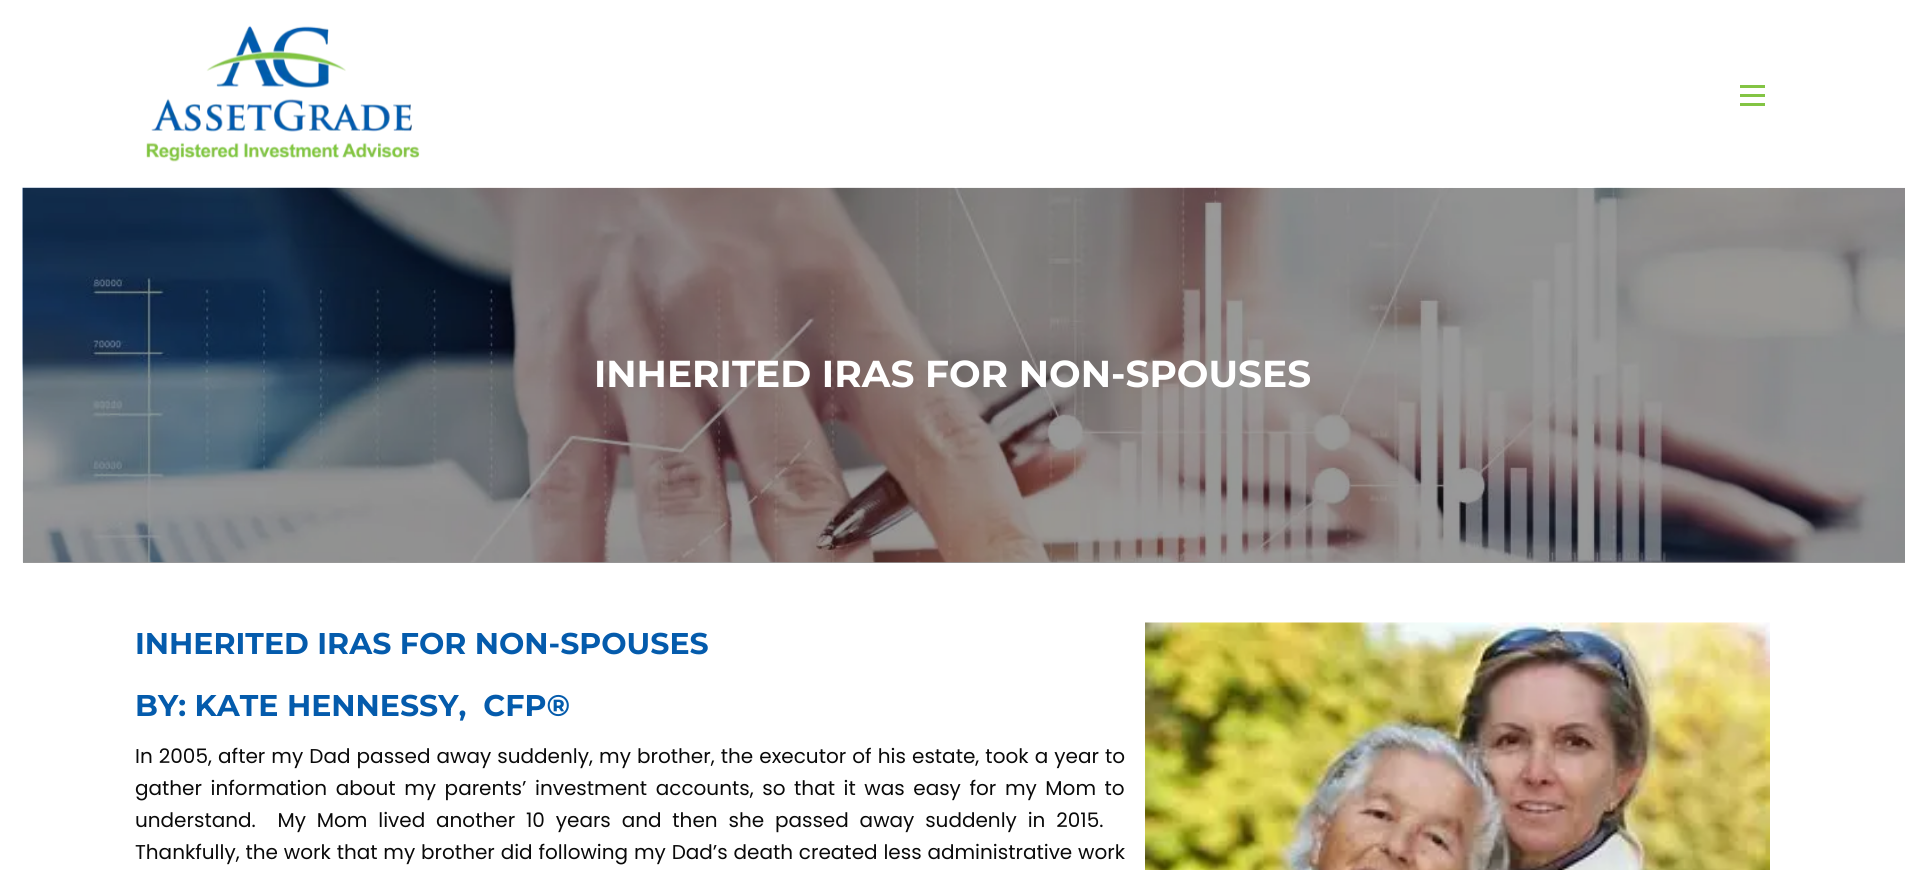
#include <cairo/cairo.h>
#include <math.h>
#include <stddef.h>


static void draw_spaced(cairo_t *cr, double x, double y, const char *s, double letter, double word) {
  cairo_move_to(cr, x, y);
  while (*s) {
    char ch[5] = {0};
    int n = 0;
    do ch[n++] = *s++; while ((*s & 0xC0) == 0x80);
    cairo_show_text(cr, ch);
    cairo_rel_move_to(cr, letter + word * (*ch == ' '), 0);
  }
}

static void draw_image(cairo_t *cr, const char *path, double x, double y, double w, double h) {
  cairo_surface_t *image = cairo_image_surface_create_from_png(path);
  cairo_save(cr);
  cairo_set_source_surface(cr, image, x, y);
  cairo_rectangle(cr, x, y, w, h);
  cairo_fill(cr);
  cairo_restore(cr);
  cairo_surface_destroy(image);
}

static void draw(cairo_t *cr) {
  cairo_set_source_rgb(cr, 1, 1, 1);
  cairo_paint(cr);
  cairo_set_source_rgb(cr, 153 / 255.0, 153 / 255.0, 153 / 255.0);
  cairo_rectangle(cr, 23, 562, 1882, 1);
  cairo_fill(cr);
  draw_image(cr, "images/1.png", 146, 25, 274, 137);
  cairo_set_source_rgb(cr, 131 / 255.0, 196 / 255.0, 68 / 255.0);
  cairo_rectangle(cr, 1740, 103, 25, 3);
  cairo_fill(cr);
  cairo_rectangle(cr, 1740, 94, 25, 3);
  cairo_fill(cr);
  cairo_rectangle(cr, 1740, 85, 25, 3);
  cairo_fill(cr);
  draw_image(cr, "images/2.png", 22, 187, 1883, 376);
  draw_image(cr, "images/3.png", 1145, 622, 625, 248);
  cairo_select_font_face(cr, "Montserrat Thin", CAIRO_FONT_SLANT_NORMAL, CAIRO_FONT_WEIGHT_NORMAL);
  cairo_set_font_size(cr, 37.5);
  cairo_set_source_rgb(cr, 1, 1, 1);
  cairo_move_to(cr, 594, 387);
  cairo_show_text(cr, "INHERITED IRAS FOR NON-SPOUSES");
  cairo_set_font_size(cr, 30);
  cairo_set_source_rgb(cr, 4 / 255.0, 91 / 255.0, 172 / 255.0);
  cairo_move_to(cr, 135, 654);
  cairo_show_text(cr, "INHERITED IRAS FOR NON-SPOUSES");
  cairo_move_to(cr, 135, 716);
  cairo_show_text(cr, "BY: KATE HENNESSY,  CFP®");
  cairo_select_font_face(cr, "Poppins", CAIRO_FONT_SLANT_NORMAL, CAIRO_FONT_WEIGHT_NORMAL);
  cairo_set_font_size(cr, 20);
  cairo_set_source_rgb(cr, 10 / 255.0, 10 / 255.0, 10 / 255.0);
  draw_spaced(cr, 135, 763, "In 2005, after my Dad passed away suddenly, my brother, the executor of his estate, took a year to", 0, 0.75);
  draw_spaced(cr, 135, 795, "gather information about my parents’ investment accounts, so that it was easy for my Mom to", 0, 3.25);
  draw_spaced(cr, 135, 827, "understand.  My Mom lived another 10 years and then she passed away suddenly in 2015.", 0, 5.5);
  draw_spaced(cr, 135, 859, "Thankfully, the work that my brother did following my Dad’s death created less administrative work", 0, 0.5);
}

int main(void) {
  cairo_surface_t *surface = cairo_image_surface_create(CAIRO_FORMAT_RGB24, 1905, 870);
  cairo_t *cr = cairo_create(surface);
  cairo_font_options_t *options = cairo_font_options_create();
  cairo_font_options_set_hint_metrics(options, CAIRO_HINT_METRICS_OFF);
  cairo_font_options_set_hint_style(options, CAIRO_HINT_STYLE_NONE);
  cairo_set_font_options(cr, options);
  cairo_set_miter_limit(cr, 4);
  draw(cr);
  cairo_surface_write_to_png(surface, "out.png");
  cairo_font_options_destroy(options);
  cairo_destroy(cr);
  cairo_surface_destroy(surface);
  return 0;
}
